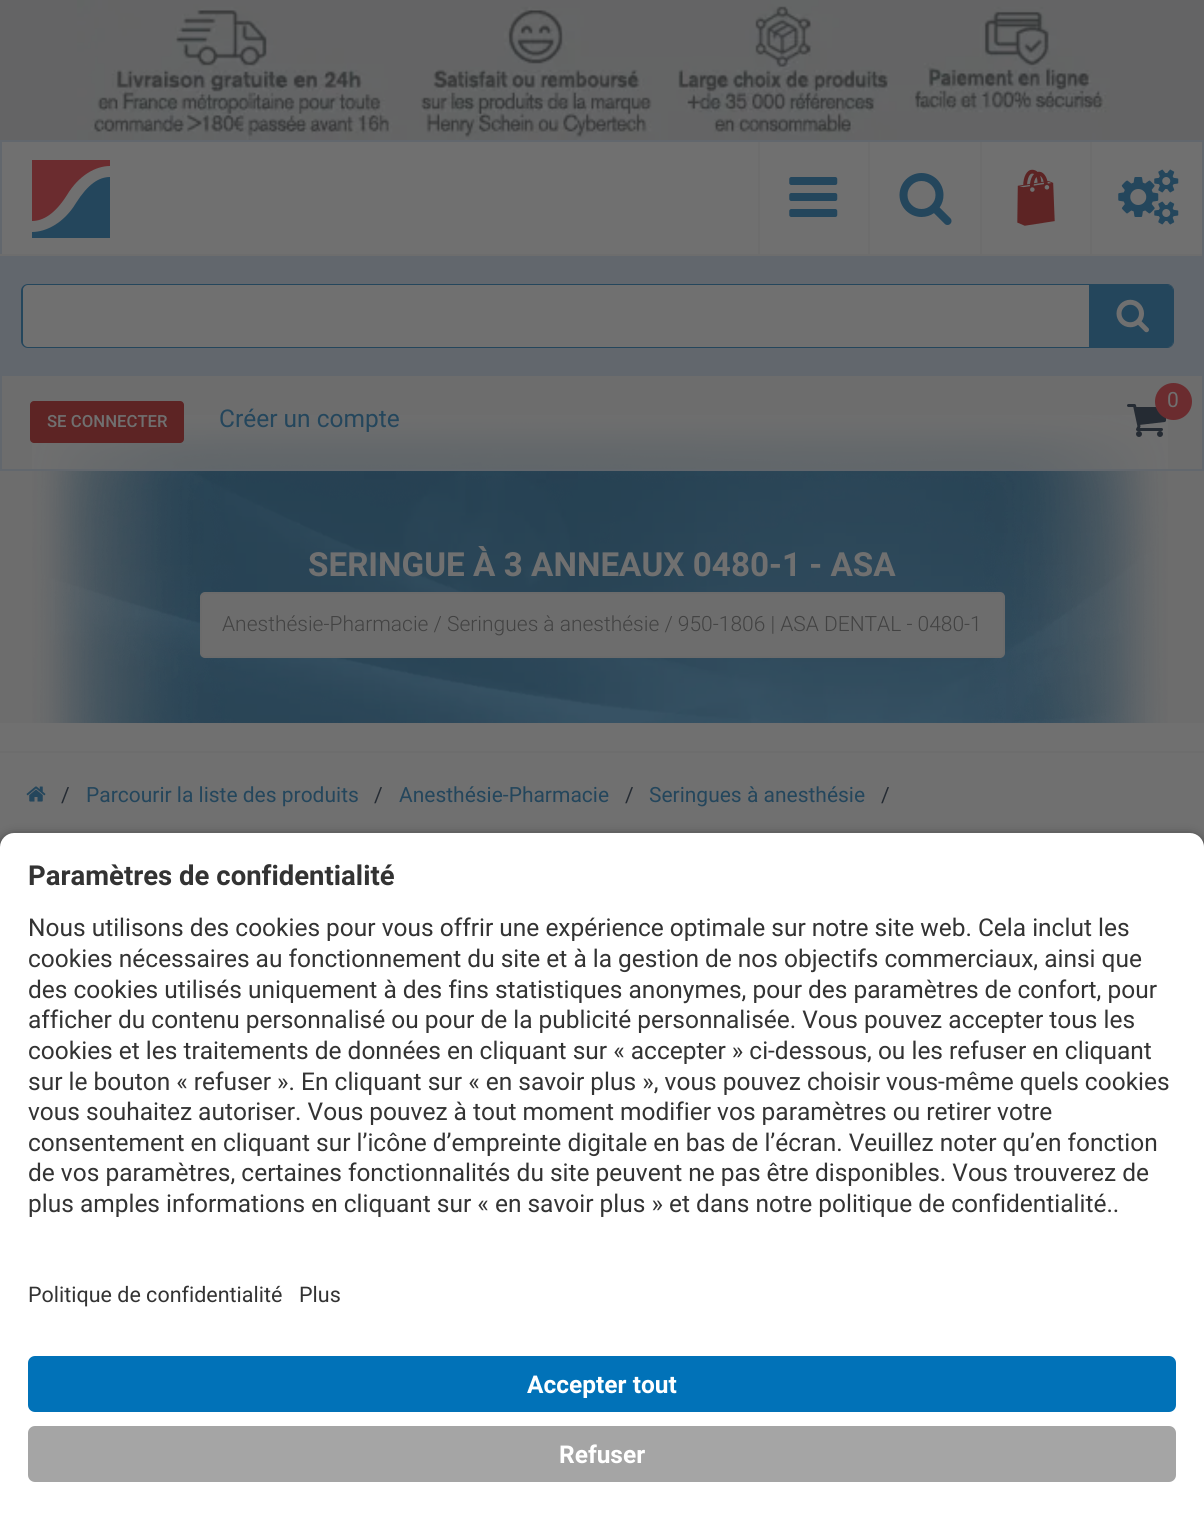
#include <cairo/cairo.h>
#include <math.h>
#include <stddef.h>


static void rounded_rect(cairo_t *cr, double x, double y, double w, double h, double r) {
  cairo_new_sub_path(cr);
  cairo_arc(cr, x + w - r, y + h - r, r, 0, M_PI / 2);
  cairo_arc(cr, x + r, y + h - r, r, M_PI / 2, M_PI);
  cairo_arc(cr, x + r, y + r, r, M_PI, 1.5 * M_PI);
  cairo_arc(cr, x + w - r, y + r, r, 1.5 * M_PI, 2 * M_PI);
  cairo_close_path(cr);
}

static void draw_shadow(cairo_t *cr, double x, double y, double w, double h, double r, double blur, double alpha) {
  cairo_push_group_with_content(cr, CAIRO_CONTENT_ALPHA);
  cairo_set_operator(cr, CAIRO_OPERATOR_SOURCE);
  for (int i = 15; i >= -15 && fmin(w, h) + blur * i / 3 > 0; i -= 2) {
    double e = blur * i / 6;
    cairo_set_source_rgba(cr, 0, 0, 0, alpha * erfc((i - 1) / 8.5) / 2);
    rounded_rect(cr, x - e, y - e, w + 2 * e, h + 2 * e, fmax(0, fmin(r + e + blur * .6, fmin(w, h) / 2 + e)));
    cairo_fill(cr);
  }
  cairo_pattern_t *soft = cairo_pop_group(cr);
  cairo_mask(cr, soft);
  cairo_pattern_destroy(soft);
}

static void draw_image(cairo_t *cr, const char *path, double x, double y, double w, double h) {
  cairo_surface_t *image = cairo_image_surface_create_from_png(path);
  cairo_save(cr);
  cairo_set_source_surface(cr, image, x, y);
  cairo_rectangle(cr, x, y, w, h);
  cairo_fill(cr);
  cairo_restore(cr);
  cairo_surface_destroy(image);
}

static void draw(cairo_t *cr) {
  cairo_set_source_rgb(cr, 109 / 255.0, 109 / 255.0, 109 / 255.0);
  cairo_paint(cr);
  cairo_set_source_rgb(cr, 100 / 255.0, 100 / 255.0, 101 / 255.0);
  cairo_rectangle(cr, 0, 0, 1204, 140);
  cairo_fill(cr);
  draw_image(cr, "images/1.png", 77, 0, 1033, 140);
  draw_image(cr, "images/8.png", 32, 415, 1136, 308);
  cairo_rectangle(cr, 1, 141, 1202, 329);
  cairo_set_source_rgb(cr, 98 / 255.0, 103 / 255.0, 109 / 255.0);
  cairo_stroke(cr);
  cairo_set_source_rgb(cr, 112 / 255.0, 112 / 255.0, 112 / 255.0);
  cairo_rectangle(cr, 2, 142, 1200, 112);
  cairo_fill(cr);
  cairo_set_source_rgb(cr, 109 / 255.0, 109 / 255.0, 109 / 255.0);
  cairo_rectangle(cr, 758, 142, 2, 112);
  cairo_fill(cr);
  draw_image(cr, "images/2.png", 789, 177, 49, 40);
  cairo_rectangle(cr, 868, 142, 2, 112);
  cairo_fill(cr);
  draw_image(cr, "images/3.png", 899, 173, 53, 52);
  cairo_rectangle(cr, 980, 142, 2, 112);
  cairo_fill(cr);
  draw_image(cr, "images/4.png", 1017, 169, 38, 57);
  cairo_rectangle(cr, 1090, 142, 2, 112);
  cairo_fill(cr);
  draw_image(cr, "images/5.png", 1118, 169, 61, 56);
  cairo_set_source_rgb(cr, 98 / 255.0, 103 / 255.0, 109 / 255.0);
  cairo_rectangle(cr, 2, 256, 1200, 120);
  cairo_fill(cr);
  cairo_set_source_rgb(cr, 109 / 255.0, 109 / 255.0, 109 / 255.0);
  cairo_rectangle(cr, 0, 254, 2, 2);
  cairo_fill(cr);
  rounded_rect(cr, 22, 285, 1151, 62, 6);
  cairo_set_source_rgb(cr, 36 / 255.0, 70 / 255.0, 92 / 255.0);
  cairo_stroke(cr);
  cairo_set_source_rgb(cr, 112 / 255.0, 112 / 255.0, 112 / 255.0);
  rounded_rect(cr, 23, 285, 1150, 62, 5);
  cairo_fill(cr);
  cairo_set_source_rgb(cr, 36 / 255.0, 70 / 255.0, 92 / 255.0);
  cairo_new_path(cr);
  cairo_move_to(cr, 1089, 285);
  cairo_line_to(cr, 1168, 285);
  cairo_curve_to(cr, 1171, 285, 1173, 287, 1173, 290);
  cairo_line_to(cr, 1173, 342);
  cairo_curve_to(cr, 1173, 345, 1171, 347, 1168, 347);
  cairo_line_to(cr, 1089, 347);
  cairo_close_path(cr);
  cairo_fill(cr);
  draw_image(cr, "images/6.png", 1116, 299, 33, 34);
  cairo_set_source_rgb(cr, 107 / 255.0, 44 / 255.0, 47 / 255.0);
  cairo_set_fill_rule(cr, CAIRO_FILL_RULE_EVEN_ODD);
  cairo_new_path(cr);
  cairo_move_to(cr, 110, 166);
  cairo_line_to(cr, 110, 160);
  cairo_line_to(cr, 32, 160);
  cairo_line_to(cr, 32, 221);
  cairo_curve_to(cr, 43, 221, 55, 214, 67, 195);
  cairo_curve_to(cr, 79, 175, 96, 166, 110, 166);
  cairo_close_path(cr);
  cairo_fill(cr);
  cairo_set_source_rgb(cr, 36 / 255.0, 70 / 255.0, 92 / 255.0);
  cairo_new_path(cr);
  cairo_move_to(cr, 32, 232);
  cairo_line_to(cr, 32, 238);
  cairo_line_to(cr, 110, 238);
  cairo_line_to(cr, 110, 177);
  cairo_curve_to(cr, 99, 177, 88, 184, 76, 203);
  cairo_curve_to(cr, 64, 223, 46, 232, 32, 232);
  cairo_close_path(cr);
  cairo_fill(cr);
  cairo_set_source_rgba(cr, 112 / 255.0, 112 / 255.0, 112 / 255.0, 0.8);
  cairo_rectangle(cr, 32, 415, 1136, 54);
  cairo_fill(cr);
  draw_image(cr, "images/7.png", 1127, 404, 39, 33);
  cairo_set_source_rgb(cr, 107 / 255.0, 44 / 255.0, 47 / 255.0);
  cairo_arc(cr, 1173.5, 401.5, 18.5, 0, 2 * M_PI);
  cairo_fill(cr);
  cairo_set_source_rgb(cr, 93 / 255.0, 36 / 255.0, 36 / 255.0);
  rounded_rect(cr, 30, 401, 154, 42, 4);
  cairo_fill(cr);
  cairo_set_source_rgb(cr, 109 / 255.0, 109 / 255.0, 109 / 255.0);
  rounded_rect(cr, 201, 593, 803, 64, 4);
  cairo_fill_preserve(cr);
  cairo_set_source_rgb(cr, 107 / 255.0, 107 / 255.0, 107 / 255.0);
  cairo_stroke(cr);
  cairo_set_source_rgb(cr, 112 / 255.0, 112 / 255.0, 112 / 255.0);
  cairo_rectangle(cr, 0, 723, 1204, 124);
  cairo_fill(cr);
  cairo_set_source_rgb(cr, 109 / 255.0, 109 / 255.0, 109 / 255.0);
  cairo_rectangle(cr, 0, 751, 1204, 2);
  cairo_fill(cr);
  draw_image(cr, "images/9.png", 26, 786, 20, 16);
  cairo_set_source_rgb(cr, 0, 0, 0);
  draw_shadow(cr, 0, 838, 1204, 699, 14, 6, 0.8);
  cairo_set_source_rgb(cr, 1, 1, 1);
  cairo_new_path(cr);
  cairo_move_to(cr, 14, 833);
  cairo_line_to(cr, 1190, 833);
  cairo_curve_to(cr, 1197.5, 833, 1204, 839.5, 1204, 847);
  cairo_line_to(cr, 1204, 1255);
  cairo_line_to(cr, 0, 1255);
  cairo_line_to(cr, 0, 847);
  cairo_curve_to(cr, 0, 839.5, 6.5, 833, 14, 833);
  cairo_close_path(cr);
  cairo_fill(cr);
  cairo_rectangle(cr, 0, 1255, 1204, 276);
  cairo_fill(cr);
  cairo_set_source_rgb(cr, 1 / 255.0, 114 / 255.0, 184 / 255.0);
  rounded_rect(cr, 28, 1356, 1148, 56, 7);
  cairo_fill(cr);
  cairo_set_source_rgb(cr, 165 / 255.0, 165 / 255.0, 165 / 255.0);
  rounded_rect(cr, 28, 1426, 1148, 56, 7);
  cairo_fill(cr);
  cairo_select_font_face(cr, "Roboto", CAIRO_FONT_SLANT_NORMAL, CAIRO_FONT_WEIGHT_NORMAL);
  cairo_set_font_size(cr, 21);
  cairo_set_source_rgb(cr, 112 / 255.0, 112 / 255.0, 112 / 255.0);
  cairo_move_to(cr, 1167, 407);
  cairo_show_text(cr, "0");
  cairo_select_font_face(cr, "Roboto Medium", CAIRO_FONT_SLANT_NORMAL, CAIRO_FONT_WEIGHT_NORMAL);
  cairo_set_font_size(cr, 16.75);
  cairo_move_to(cr, 47, 427);
  cairo_show_text(cr, "SE CONNECTER");
  cairo_select_font_face(cr, "Roboto", CAIRO_FONT_SLANT_NORMAL, CAIRO_FONT_WEIGHT_NORMAL);
  cairo_set_font_size(cr, 24.5);
  cairo_set_source_rgb(cr, 36 / 255.0, 70 / 255.0, 92 / 255.0);
  cairo_move_to(cr, 219, 427);
  cairo_show_text(cr, "Créer un compte");
  cairo_select_font_face(cr, "Roboto", CAIRO_FONT_SLANT_NORMAL, CAIRO_FONT_WEIGHT_BOLD);
  cairo_set_font_size(cr, 33.25);
  cairo_set_source_rgb(cr, 112 / 255.0, 112 / 255.0, 112 / 255.0);
  cairo_move_to(cr, 308, 576);
  cairo_show_text(cr, "SERINGUE À 3 ANNEAUX 0480-1 - ASA");
  cairo_select_font_face(cr, "Roboto Light", CAIRO_FONT_SLANT_NORMAL, CAIRO_FONT_WEIGHT_NORMAL);
  cairo_set_font_size(cr, 21);
  cairo_set_source_rgb(cr, 66 / 255.0, 66 / 255.0, 66 / 255.0);
  cairo_move_to(cr, 222, 631);
  cairo_show_text(cr, "Anesthésie-Pharmacie / Seringues à anesthésie / 950-1806 | ASA DENTAL - 0480-1");
  cairo_select_font_face(cr, "Roboto", CAIRO_FONT_SLANT_NORMAL, CAIRO_FONT_WEIGHT_NORMAL);
  cairo_set_source_rgb(cr, 37 / 255.0, 43 / 255.0, 51 / 255.0);
  cairo_move_to(cr, 61, 802);
  cairo_show_text(cr, "/");
  cairo_set_source_rgb(cr, 36 / 255.0, 70 / 255.0, 92 / 255.0);
  cairo_move_to(cr, 86, 802);
  cairo_show_text(cr, "Parcourir la liste des produits");
  cairo_set_source_rgb(cr, 37 / 255.0, 43 / 255.0, 51 / 255.0);
  cairo_move_to(cr, 374, 802);
  cairo_show_text(cr, "/");
  cairo_set_source_rgb(cr, 36 / 255.0, 70 / 255.0, 92 / 255.0);
  cairo_move_to(cr, 399, 802);
  cairo_show_text(cr, "Anesthésie-Pharmacie");
  cairo_set_source_rgb(cr, 37 / 255.0, 43 / 255.0, 51 / 255.0);
  cairo_move_to(cr, 625, 802);
  cairo_show_text(cr, "/");
  cairo_set_source_rgb(cr, 36 / 255.0, 70 / 255.0, 92 / 255.0);
  cairo_move_to(cr, 649, 802);
  cairo_show_text(cr, "Seringues à anesthésie");
  cairo_set_source_rgb(cr, 37 / 255.0, 43 / 255.0, 51 / 255.0);
  cairo_move_to(cr, 881, 802);
  cairo_show_text(cr, "/");
  cairo_select_font_face(cr, "Roboto", CAIRO_FONT_SLANT_NORMAL, CAIRO_FONT_WEIGHT_BOLD);
  cairo_set_font_size(cr, 27.5);
  cairo_set_source_rgb(cr, 51 / 255.0, 51 / 255.0, 51 / 255.0);
  cairo_move_to(cr, 28, 885);
  cairo_show_text(cr, "Paramètres de confidentialité");
  cairo_select_font_face(cr, "Roboto", CAIRO_FONT_SLANT_NORMAL, CAIRO_FONT_WEIGHT_NORMAL);
  cairo_set_font_size(cr, 24.5);
  cairo_move_to(cr, 28, 936);
  cairo_show_text(cr, "Nous utilisons des cookies pour vous offrir une expérience optimale sur notre site web. Cela inclut les");
  cairo_move_to(cr, 28, 967);
  cairo_show_text(cr, "cookies nécessaires au fonctionnement du site et à la gestion de nos objectifs commerciaux, ainsi que");
  cairo_move_to(cr, 28, 998);
  cairo_show_text(cr, "des cookies utilisés uniquement à des fins statistiques anonymes, pour des paramètres de confort, pour");
  cairo_move_to(cr, 28, 1028);
  cairo_show_text(cr, "afficher du contenu personnalisé ou pour de la publicité personnalisée. Vous pouvez accepter tous les");
  cairo_move_to(cr, 28, 1059);
  cairo_show_text(cr, "cookies et les traitements de données en cliquant sur « accepter » ci-dessous, ou les refuser en cliquant");
  cairo_move_to(cr, 28, 1090);
  cairo_show_text(cr, "sur le bouton « refuser ». En cliquant sur « en savoir plus », vous pouvez choisir vous-même quels cookies");
  cairo_move_to(cr, 28, 1120);
  cairo_show_text(cr, "vous souhaitez autoriser. Vous pouvez à tout moment modifier vos paramètres ou retirer votre");
  cairo_move_to(cr, 28, 1151);
  cairo_show_text(cr, "consentement en cliquant sur l’icône d’empreinte digitale en bas de l’écran. Veuillez noter qu’en fonction");
  cairo_move_to(cr, 28, 1181);
  cairo_show_text(cr, "de vos paramètres, certaines fonctionnalités du site peuvent ne pas être disponibles. Vous trouverez de");
  cairo_move_to(cr, 28, 1212);
  cairo_show_text(cr, "plus amples informations en cliquant sur « en savoir plus » et dans notre politique de confidentialité..");
  cairo_set_font_size(cr, 21.5);
  cairo_move_to(cr, 28, 1302);
  cairo_show_text(cr, "Politique de confidentialité");
  cairo_move_to(cr, 299, 1302);
  cairo_show_text(cr, "Plus");
  cairo_select_font_face(cr, "Roboto", CAIRO_FONT_SLANT_NORMAL, CAIRO_FONT_WEIGHT_BOLD);
  cairo_set_font_size(cr, 24.5);
  cairo_set_source_rgb(cr, 1, 1, 1);
  cairo_move_to(cr, 527, 1393);
  cairo_show_text(cr, "Accepter tout");
  cairo_move_to(cr, 559, 1463);
  cairo_show_text(cr, "Refuser");
}

int main(void) {
  cairo_surface_t *surface = cairo_image_surface_create(CAIRO_FORMAT_RGB24, 1204, 1531);
  cairo_t *cr = cairo_create(surface);
  cairo_font_options_t *options = cairo_font_options_create();
  cairo_font_options_set_hint_metrics(options, CAIRO_HINT_METRICS_OFF);
  cairo_font_options_set_hint_style(options, CAIRO_HINT_STYLE_NONE);
  cairo_set_font_options(cr, options);
  cairo_set_miter_limit(cr, 4);
  draw(cr);
  cairo_surface_write_to_png(surface, "out.png");
  cairo_font_options_destroy(options);
  cairo_destroy(cr);
  cairo_surface_destroy(surface);
  return 0;
}
